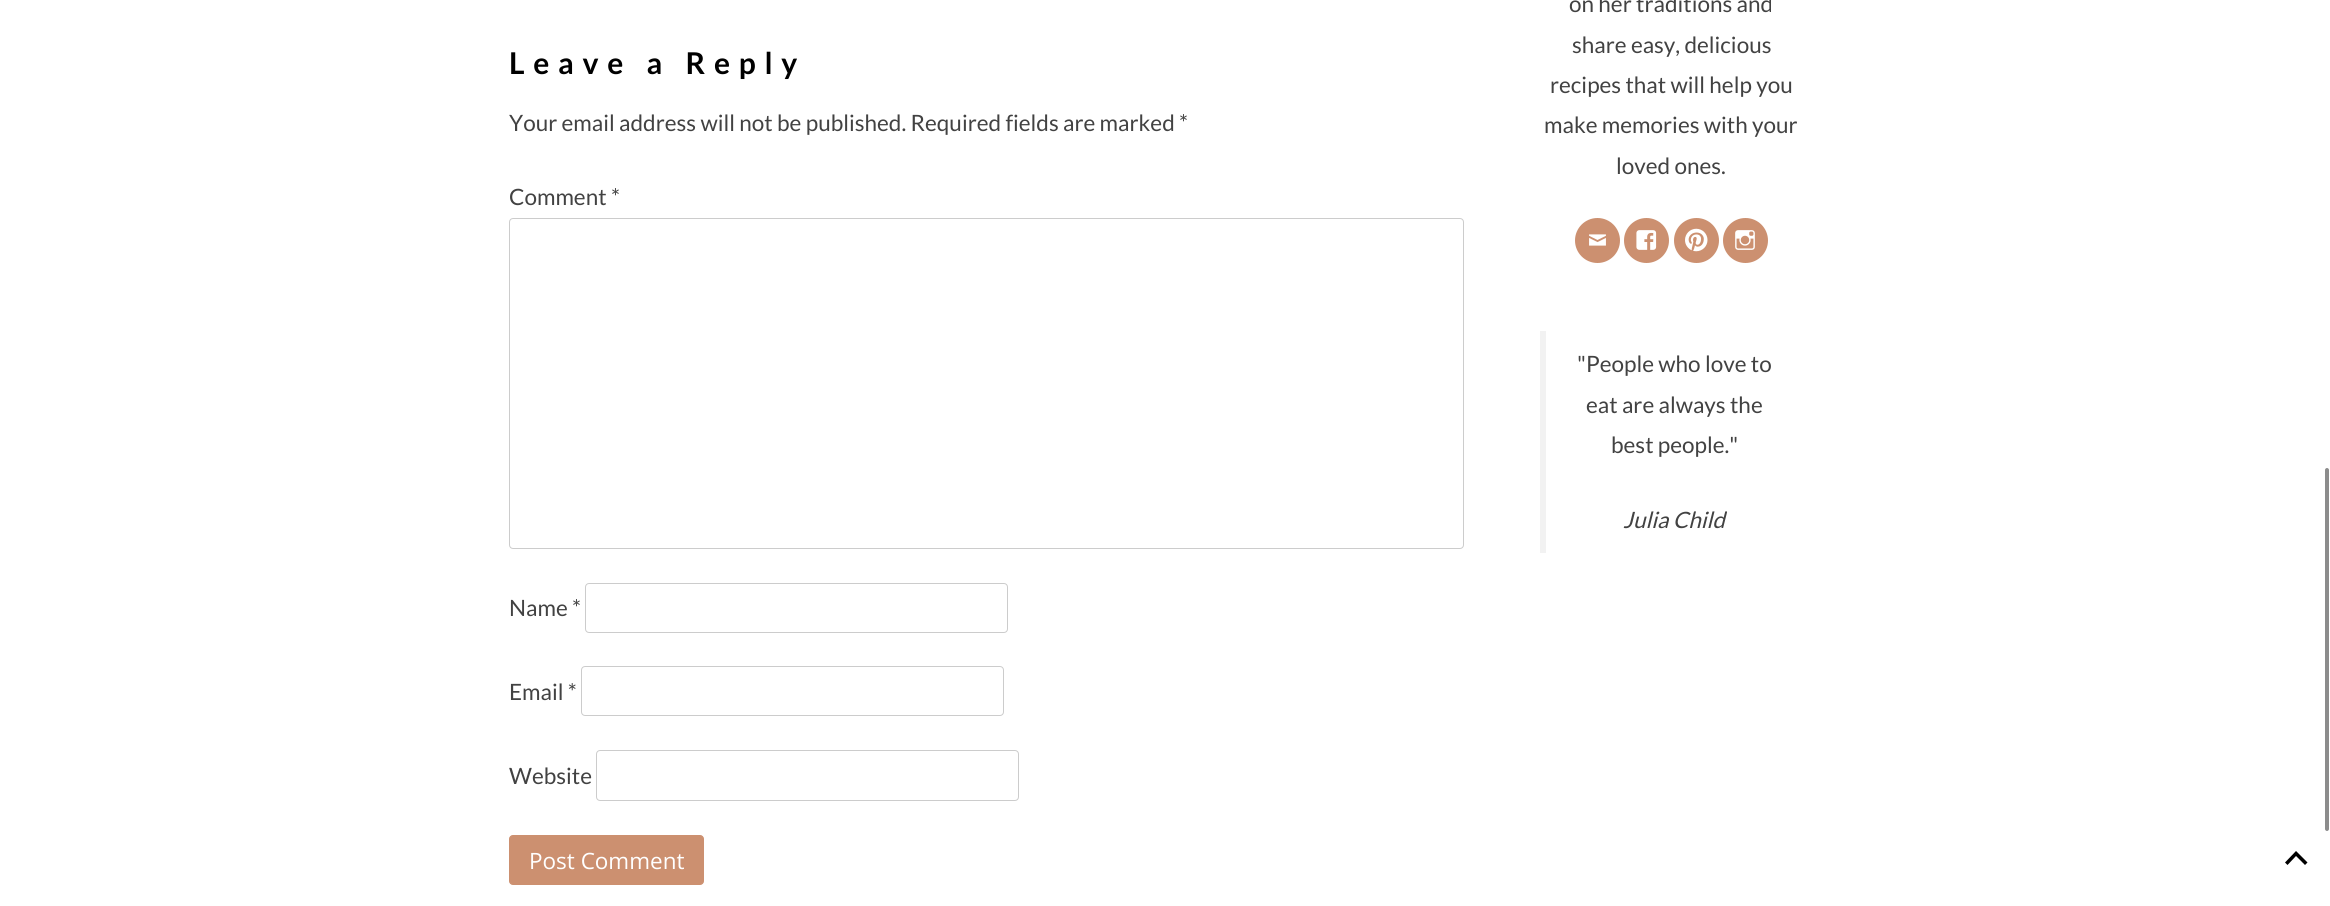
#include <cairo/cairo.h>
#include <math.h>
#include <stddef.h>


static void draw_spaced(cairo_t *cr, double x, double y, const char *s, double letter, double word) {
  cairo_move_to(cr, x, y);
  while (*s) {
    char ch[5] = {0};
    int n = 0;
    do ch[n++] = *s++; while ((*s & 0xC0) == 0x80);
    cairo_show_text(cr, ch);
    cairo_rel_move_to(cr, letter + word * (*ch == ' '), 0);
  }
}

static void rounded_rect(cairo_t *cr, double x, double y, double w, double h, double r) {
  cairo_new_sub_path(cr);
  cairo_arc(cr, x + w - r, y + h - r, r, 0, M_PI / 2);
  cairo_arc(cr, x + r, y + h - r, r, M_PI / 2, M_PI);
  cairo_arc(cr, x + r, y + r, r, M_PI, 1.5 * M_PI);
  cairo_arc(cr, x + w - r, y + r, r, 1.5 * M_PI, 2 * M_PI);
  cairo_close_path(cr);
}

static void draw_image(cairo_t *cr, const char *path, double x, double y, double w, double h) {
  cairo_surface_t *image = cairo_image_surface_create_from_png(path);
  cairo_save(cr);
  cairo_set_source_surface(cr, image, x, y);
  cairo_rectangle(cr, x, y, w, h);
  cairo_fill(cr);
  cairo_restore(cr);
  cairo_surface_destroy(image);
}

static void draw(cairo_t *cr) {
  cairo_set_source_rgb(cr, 1, 1, 1);
  cairo_paint(cr);
  rounded_rect(cr, 509.5, 218.5, 954, 330, 3.5);
  cairo_set_source_rgb(cr, 204 / 255.0, 204 / 255.0, 204 / 255.0);
  cairo_set_line_width(cr, 1);
  cairo_stroke(cr);
  rounded_rect(cr, 585.5, 583.5, 422, 49, 3.5);
  cairo_stroke(cr);
  rounded_rect(cr, 581.5, 666.5, 422, 49, 3.5);
  cairo_stroke(cr);
  rounded_rect(cr, 596.5, 750.5, 422, 50, 3.5);
  cairo_stroke(cr);
  cairo_set_source_rgb(cr, 204 / 255.0, 144 / 255.0, 112 / 255.0);
  rounded_rect(cr, 509.5, 835.5, 194, 49, 3.5);
  cairo_fill_preserve(cr);
  cairo_stroke(cr);
  cairo_arc(cr, 1597.5, 240.5, 22.5, 0, 2 * M_PI);
  cairo_fill(cr);
  draw_image(cr, "images/1.png", 1589, 234, 17, 12);
  cairo_arc(cr, 1646.5, 240.5, 22.5, 0, 2 * M_PI);
  cairo_fill(cr);
  draw_image(cr, "images/2.png", 1636, 230, 21, 20);
  cairo_arc(cr, 1696.5, 240.5, 22.5, 0, 2 * M_PI);
  cairo_fill(cr);
  draw_image(cr, "images/3.png", 1685, 228, 23, 24);
  cairo_arc(cr, 1745.5, 240.5, 22.5, 0, 2 * M_PI);
  cairo_fill(cr);
  draw_image(cr, "images/4.png", 1735, 230, 20, 20);
  cairo_set_source_rgb(cr, 242 / 255.0, 242 / 255.0, 242 / 255.0);
  cairo_rectangle(cr, 1540, 331, 6, 222);
  cairo_fill(cr);
  cairo_set_source_rgb(cr, 140 / 255.0, 140 / 255.0, 140 / 255.0);
  rounded_rect(cr, 2325, 468, 4, 363, 2);
  cairo_fill(cr);
  rounded_rect(cr, 2324.5, 466.5, 5, 366, 2.5);
  cairo_set_source_rgb(cr, 1, 1, 1);
  cairo_stroke(cr);
  cairo_set_source_rgb(cr, 0, 0, 0);
  cairo_new_path(cr);
  cairo_move_to(cr, 2285, 862.5);
  cairo_line_to(cr, 2296, 851);
  cairo_line_to(cr, 2307.5, 862.5);
  cairo_line_to(cr, 2305, 865);
  cairo_line_to(cr, 2296, 856);
  cairo_line_to(cr, 2287.5, 865);
  cairo_close_path(cr);
  cairo_fill(cr);
  cairo_select_font_face(cr, "Lato", CAIRO_FONT_SLANT_NORMAL, CAIRO_FONT_WEIGHT_BOLD);
  cairo_set_font_size(cr, 30);
  draw_spaced(cr, 509, 74, "Leave a Reply", 8.75, 0);
  cairo_select_font_face(cr, "Lato", CAIRO_FONT_SLANT_NORMAL, CAIRO_FONT_WEIGHT_NORMAL);
  cairo_set_font_size(cr, 22.5);
  cairo_set_source_rgb(cr, 66 / 255.0, 66 / 255.0, 66 / 255.0);
  cairo_move_to(cr, 509, 131);
  cairo_show_text(cr, "Your email address will not be published. Required fields are marked *");
  cairo_move_to(cr, 509, 205);
  cairo_show_text(cr, "Comment *");
  cairo_move_to(cr, 509, 616);
  cairo_show_text(cr, "Name *");
  cairo_move_to(cr, 509, 700);
  cairo_show_text(cr, "Email *");
  cairo_move_to(cr, 509, 784);
  cairo_show_text(cr, "Website");
  cairo_select_font_face(cr, "Open Sans", CAIRO_FONT_SLANT_NORMAL, CAIRO_FONT_WEIGHT_NORMAL);
  cairo_set_source_rgb(cr, 1, 1, 1);
  cairo_move_to(cr, 529, 869);
  cairo_show_text(cr, "Post Comment");
  cairo_select_font_face(cr, "Lato", CAIRO_FONT_SLANT_NORMAL, CAIRO_FONT_WEIGHT_NORMAL);
  cairo_set_source_rgb(cr, 66 / 255.0, 66 / 255.0, 66 / 255.0);
  cairo_move_to(cr, 1569, 12);
  cairo_show_text(cr, "on her traditions and");
  cairo_move_to(cr, 1572, 53);
  cairo_show_text(cr, "share easy, delicious");
  cairo_move_to(cr, 1550, 93);
  cairo_show_text(cr, "recipes that will help you");
  cairo_move_to(cr, 1544, 133);
  cairo_show_text(cr, "make memories with your");
  cairo_move_to(cr, 1616, 174);
  cairo_show_text(cr, "loved ones.");
  cairo_move_to(cr, 1577, 372);
  cairo_show_text(cr, "\"People who love to");
  cairo_move_to(cr, 1586, 413);
  cairo_show_text(cr, "eat are always the");
  cairo_move_to(cr, 1611, 453);
  cairo_show_text(cr, "best people.\"");
  cairo_select_font_face(cr, "Lato", CAIRO_FONT_SLANT_ITALIC, CAIRO_FONT_WEIGHT_NORMAL);
  cairo_move_to(cr, 1623, 528);
  cairo_show_text(cr, "Julia Child");
}

int main(void) {
  cairo_surface_t *surface = cairo_image_surface_create(CAIRO_FORMAT_RGB24, 2330, 906);
  cairo_t *cr = cairo_create(surface);
  cairo_font_options_t *options = cairo_font_options_create();
  cairo_font_options_set_hint_metrics(options, CAIRO_HINT_METRICS_OFF);
  cairo_font_options_set_hint_style(options, CAIRO_HINT_STYLE_NONE);
  cairo_set_font_options(cr, options);
  cairo_set_miter_limit(cr, 4);
  draw(cr);
  cairo_surface_write_to_png(surface, "out.png");
  cairo_font_options_destroy(options);
  cairo_destroy(cr);
  cairo_surface_destroy(surface);
  return 0;
}
